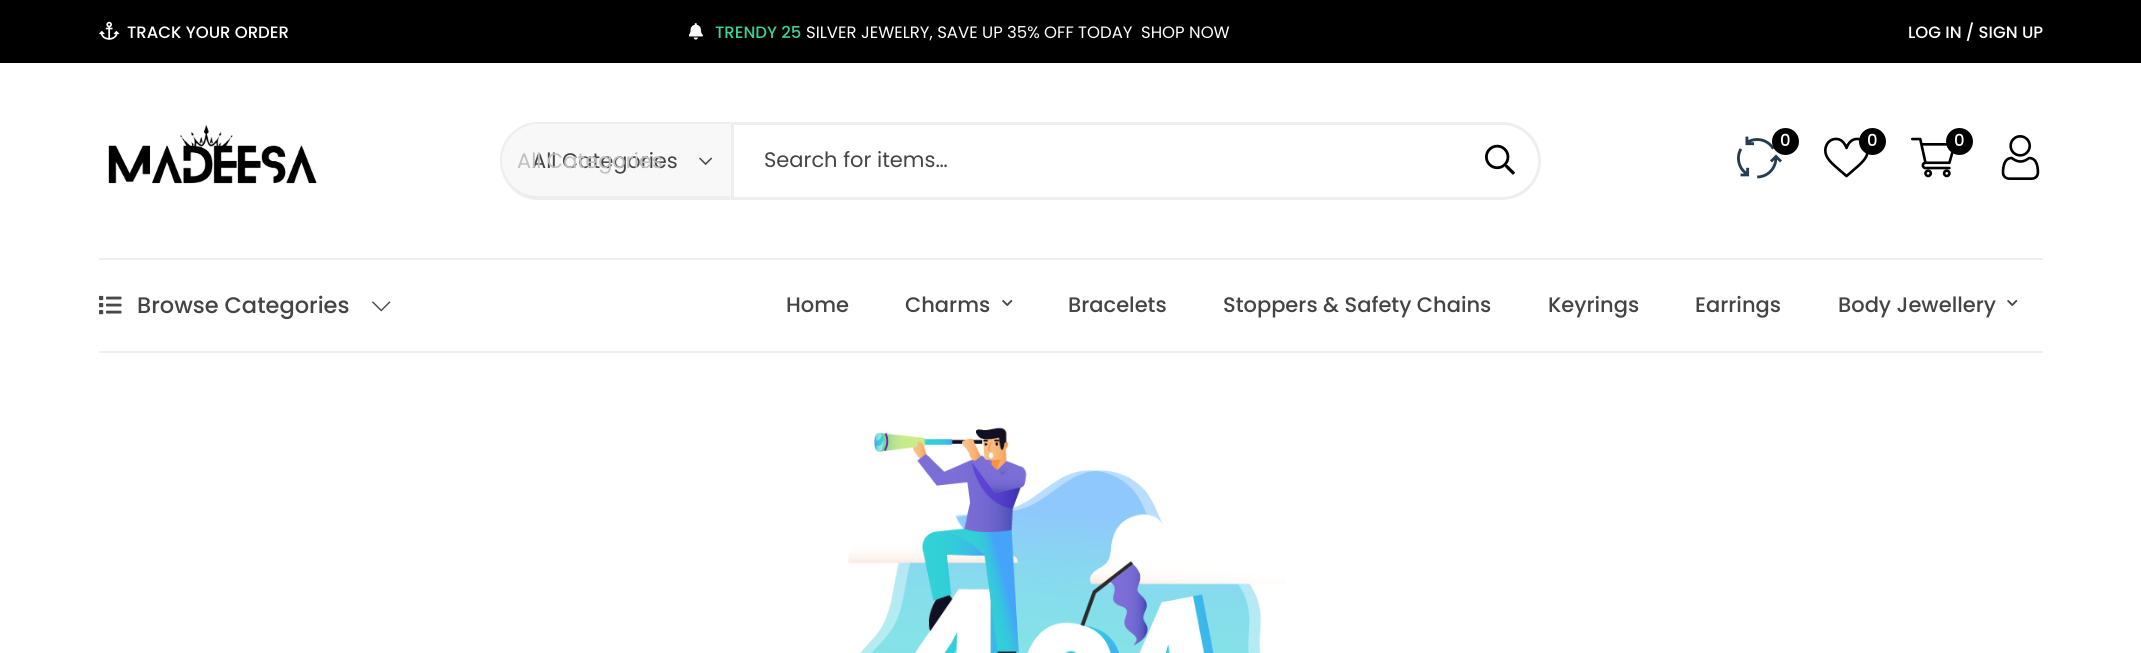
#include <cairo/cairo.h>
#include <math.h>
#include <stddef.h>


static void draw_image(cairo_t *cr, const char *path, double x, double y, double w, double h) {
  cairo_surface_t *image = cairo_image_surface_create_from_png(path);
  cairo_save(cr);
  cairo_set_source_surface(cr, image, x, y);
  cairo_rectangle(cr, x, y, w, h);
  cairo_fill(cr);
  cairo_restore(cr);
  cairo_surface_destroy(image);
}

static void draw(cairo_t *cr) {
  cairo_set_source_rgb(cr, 1, 1, 1);
  cairo_paint(cr);
  cairo_set_source_rgb(cr, 0, 0, 0);
  cairo_rectangle(cr, 0, 0, 2141, 63);
  cairo_fill(cr);
  draw_image(cr, "images/1.png", 99, 21, 21, 19);
  draw_image(cr, "images/2.png", 689, 23, 14, 17);
  draw_image(cr, "images/3.png", 108, 125, 209, 59);
  draw_image(cr, "images/4.png", 1737, 136, 45, 43);
  cairo_arc(cr, 1785.5, 141.5, 13.5, 0, 2 * M_PI);
  cairo_fill(cr);
  draw_image(cr, "images/5.png", 1824, 137, 45, 41);
  cairo_arc(cr, 1872.5, 141.5, 13.5, 0, 2 * M_PI);
  cairo_fill(cr);
  draw_image(cr, "images/6.png", 1911, 137, 43, 41);
  cairo_arc(cr, 1959.5, 141.5, 13.5, 0, 2 * M_PI);
  cairo_fill(cr);
  draw_image(cr, "images/7.png", 2001, 135, 39, 45);
  cairo_set_source_rgb(cr, 248 / 255.0, 248 / 255.0, 248 / 255.0);
  cairo_new_path(cr);
  cairo_move_to(cr, 539, 122);
  cairo_line_to(cr, 731, 122);
  cairo_line_to(cr, 731, 200);
  cairo_line_to(cr, 539, 200);
  cairo_curve_to(cr, 517.5, 200, 500, 182.5, 500, 161);
  cairo_curve_to(cr, 500, 139.5, 517.5, 122, 539, 122);
  cairo_close_path(cr);
  cairo_fill(cr);
  cairo_set_source_rgb(cr, 238 / 255.0, 238 / 255.0, 238 / 255.0);
  cairo_set_fill_rule(cr, CAIRO_FILL_RULE_EVEN_ODD);
  cairo_new_path(cr);
  cairo_move_to(cr, 538, 122);
  cairo_line_to(cr, 730, 122);
  cairo_line_to(cr, 730, 200);
  cairo_line_to(cr, 538, 200);
  cairo_curve_to(cr, 517, 200, 500, 182, 500, 160);
  cairo_curve_to(cr, 500, 139, 517, 122, 538, 122);
  cairo_close_path(cr);
  cairo_move_to(cr, 538, 124);
  cairo_line_to(cr, 730, 124);
  cairo_line_to(cr, 730, 196);
  cairo_line_to(cr, 538, 196);
  cairo_curve_to(cr, 519, 196, 502, 180, 502, 160);
  cairo_curve_to(cr, 502, 141, 519, 124, 538, 124);
  cairo_close_path(cr);
  cairo_fill(cr);
  draw_image(cr, "images/8.png", 699, 157, 13, 8);
  cairo_new_path(cr);
  cairo_move_to(cr, 732.5, 123.5);
  cairo_line_to(cr, 1502, 123.5);
  cairo_curve_to(cr, 1522.5, 123.5, 1539.5, 140.5, 1539.5, 161);
  cairo_curve_to(cr, 1539.5, 181.5, 1522.5, 198.5, 1502, 198.5);
  cairo_line_to(cr, 732.5, 198.5);
  cairo_close_path(cr);
  cairo_set_line_width(cr, 3);
  cairo_stroke(cr);
  draw_image(cr, "images/9.png", 1485, 144, 30, 31);
  cairo_rectangle(cr, 99, 258, 1944, 2);
  cairo_fill(cr);
  cairo_rectangle(cr, 99, 351, 1944, 2);
  cairo_fill(cr);
  draw_image(cr, "images/10.png", 99, 295, 23, 20);
  draw_image(cr, "images/11.png", 372, 301, 19, 11);
  draw_image(cr, "images/12.png", 1002, 299, 11, 8);
  draw_image(cr, "images/12.png", 2007, 299, 11, 8);
  draw_image(cr, "images/13.png", 848, 427, 438, 226);
  cairo_select_font_face(cr, "Poppins Medium", CAIRO_FONT_SLANT_NORMAL, CAIRO_FONT_WEIGHT_NORMAL);
  cairo_set_font_size(cr, 16.5);
  cairo_set_source_rgb(cr, 1, 1, 1);
  cairo_move_to(cr, 127, 38);
  cairo_show_text(cr, "TRACK YOUR ORDER");
  cairo_set_source_rgb(cr, 62 / 255.0, 208 / 255.0, 146 / 255.0);
  cairo_move_to(cr, 715, 38);
  cairo_show_text(cr, "TRENDY 25");
  cairo_select_font_face(cr, "Poppins", CAIRO_FONT_SLANT_NORMAL, CAIRO_FONT_WEIGHT_NORMAL);
  cairo_set_source_rgb(cr, 1, 1, 1);
  cairo_move_to(cr, 806, 38);
  cairo_show_text(cr, "SILVER JEWELRY, SAVE UP 35% OFF TODAY");
  cairo_move_to(cr, 1141, 38);
  cairo_show_text(cr, "SHOP NOW");
  cairo_select_font_face(cr, "Poppins Medium", CAIRO_FONT_SLANT_NORMAL, CAIRO_FONT_WEIGHT_NORMAL);
  cairo_move_to(cr, 1908, 38);
  cairo_show_text(cr, "LOG IN / SIGN UP");
  cairo_move_to(cr, 1780, 146);
  cairo_show_text(cr, "0");
  cairo_move_to(cr, 1867, 146);
  cairo_show_text(cr, "0");
  cairo_move_to(cr, 1954, 146);
  cairo_show_text(cr, "0");
  cairo_select_font_face(cr, "Poppins", CAIRO_FONT_SLANT_NORMAL, CAIRO_FONT_WEIGHT_NORMAL);
  cairo_set_font_size(cr, 21);
  cairo_set_source_rgb(cr, 68 / 255.0, 68 / 255.0, 68 / 255.0);
  cairo_move_to(cr, 532, 168);
  cairo_show_text(cr, "All Categories");
  cairo_set_source_rgb(cr, 192 / 255.0, 192 / 255.0, 192 / 255.0);
  cairo_move_to(cr, 517, 168);
  cairo_show_text(cr, "All Categories");
  cairo_set_source_rgb(cr, 68 / 255.0, 68 / 255.0, 68 / 255.0);
  cairo_move_to(cr, 764, 167);
  cairo_show_text(cr, "Search for items…");
  cairo_select_font_face(cr, "Poppins Medium", CAIRO_FONT_SLANT_NORMAL, CAIRO_FONT_WEIGHT_NORMAL);
  cairo_set_font_size(cr, 22.5);
  cairo_move_to(cr, 137, 313);
  cairo_show_text(cr, "Browse Categories");
  cairo_set_font_size(cr, 21);
  cairo_move_to(cr, 786, 312);
  cairo_show_text(cr, "Home");
  cairo_move_to(cr, 905, 312);
  cairo_show_text(cr, "Charms");
  cairo_move_to(cr, 1068, 312);
  cairo_show_text(cr, "Bracelets");
  cairo_move_to(cr, 1223, 312);
  cairo_show_text(cr, "Stoppers & Safety Chains");
  cairo_move_to(cr, 1548, 312);
  cairo_show_text(cr, "Keyrings");
  cairo_move_to(cr, 1695, 312);
  cairo_show_text(cr, "Earrings");
  cairo_move_to(cr, 1838, 312);
  cairo_show_text(cr, "Body Jewellery");
}

int main(void) {
  cairo_surface_t *surface = cairo_image_surface_create(CAIRO_FORMAT_RGB24, 2141, 653);
  cairo_t *cr = cairo_create(surface);
  cairo_font_options_t *options = cairo_font_options_create();
  cairo_font_options_set_hint_metrics(options, CAIRO_HINT_METRICS_OFF);
  cairo_font_options_set_hint_style(options, CAIRO_HINT_STYLE_NONE);
  cairo_set_font_options(cr, options);
  cairo_set_miter_limit(cr, 4);
  draw(cr);
  cairo_surface_write_to_png(surface, "out.png");
  cairo_font_options_destroy(options);
  cairo_destroy(cr);
  cairo_surface_destroy(surface);
  return 0;
}
